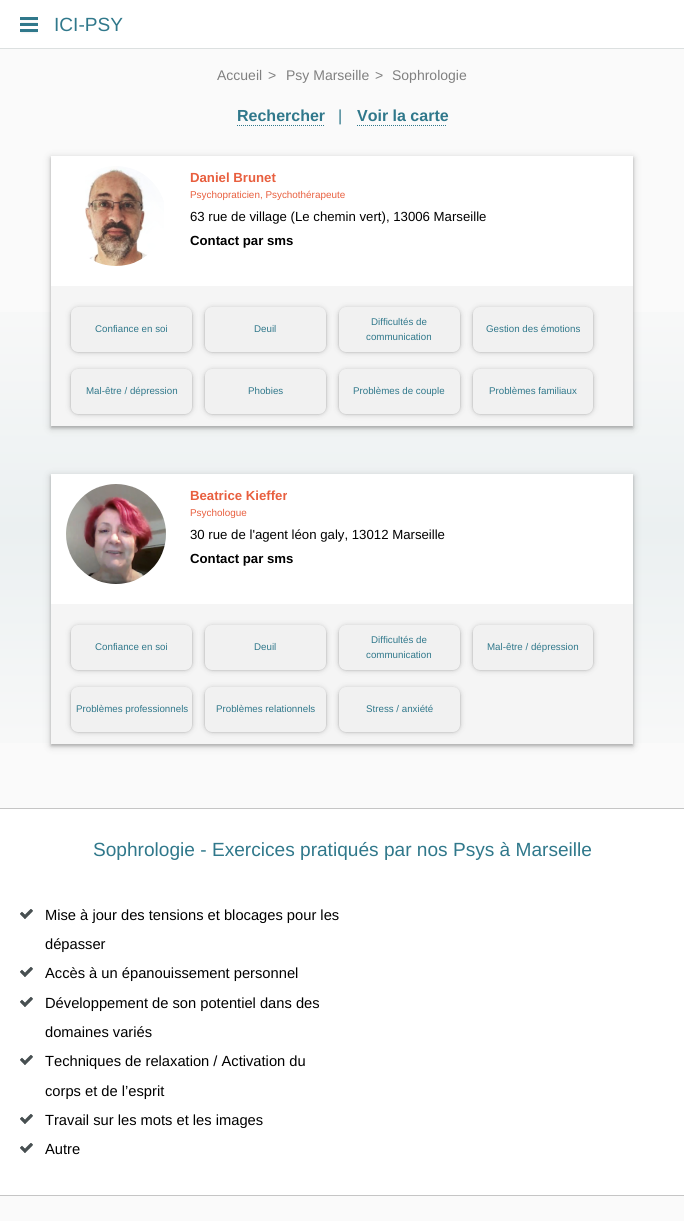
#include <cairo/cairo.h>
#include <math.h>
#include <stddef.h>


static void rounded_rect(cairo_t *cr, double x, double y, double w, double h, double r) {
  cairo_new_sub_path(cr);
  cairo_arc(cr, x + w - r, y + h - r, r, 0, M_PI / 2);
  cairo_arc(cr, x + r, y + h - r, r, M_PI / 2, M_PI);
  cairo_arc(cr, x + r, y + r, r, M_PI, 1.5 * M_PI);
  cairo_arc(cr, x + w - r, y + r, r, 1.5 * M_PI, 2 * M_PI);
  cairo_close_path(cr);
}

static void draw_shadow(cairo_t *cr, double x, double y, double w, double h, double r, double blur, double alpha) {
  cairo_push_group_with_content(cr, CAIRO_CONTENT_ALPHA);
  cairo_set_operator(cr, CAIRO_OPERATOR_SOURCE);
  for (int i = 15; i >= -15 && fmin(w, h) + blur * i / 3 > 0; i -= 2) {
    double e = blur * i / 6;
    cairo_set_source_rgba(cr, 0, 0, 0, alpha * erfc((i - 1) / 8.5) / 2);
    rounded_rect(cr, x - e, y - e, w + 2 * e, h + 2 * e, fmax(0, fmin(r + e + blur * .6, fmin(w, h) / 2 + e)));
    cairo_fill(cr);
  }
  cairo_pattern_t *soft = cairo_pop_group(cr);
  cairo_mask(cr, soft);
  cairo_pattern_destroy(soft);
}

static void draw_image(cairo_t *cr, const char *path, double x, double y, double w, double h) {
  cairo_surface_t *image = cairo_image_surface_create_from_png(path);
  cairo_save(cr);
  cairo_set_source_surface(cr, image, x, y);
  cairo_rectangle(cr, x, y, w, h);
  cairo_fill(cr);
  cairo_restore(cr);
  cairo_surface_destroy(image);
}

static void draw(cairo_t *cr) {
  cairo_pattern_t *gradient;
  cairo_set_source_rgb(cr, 250 / 255.0, 250 / 255.0, 250 / 255.0);
  cairo_paint(cr);
  cairo_set_source_rgb(cr, 220 / 255.0, 224 / 255.0, 224 / 255.0);
  cairo_rectangle(cr, 0, 48, 684, 1);
  cairo_fill(cr);
  cairo_set_source_rgb(cr, 1, 1, 1);
  cairo_rectangle(cr, 0, 0, 684, 48);
  cairo_fill(cr);
  draw_image(cr, "images/1.png", 20, 17, 18, 17);
  gradient = cairo_pattern_create_linear(342, 49, 342, 768);
  cairo_pattern_add_color_stop_rgba(gradient, 0, 249 / 255.0, 249 / 255.0, 249 / 255.0, 1);
  cairo_pattern_add_color_stop_rgba(gradient, 0.33, 249 / 255.0, 249 / 255.0, 249 / 255.0, 1);
  cairo_pattern_add_color_stop_rgba(gradient, 0.67, 235 / 255.0, 240 / 255.0, 241 / 255.0, 1);
  cairo_pattern_add_color_stop_rgba(gradient, 1, 249 / 255.0, 249 / 255.0, 249 / 255.0, 1);
  cairo_set_source(cr, gradient);
  cairo_pattern_destroy(gradient);
  cairo_rectangle(cr, 0, 312, 684, 431);
  cairo_fill(cr);
  cairo_new_path(cr);
  cairo_move_to(cr, 237, 125.5);
  cairo_line_to(cr, 324, 125.5);
  cairo_set_source_rgb(cr, 48 / 255.0, 120 / 255.0, 139 / 255.0);
  cairo_set_line_width(cr, 1);
  cairo_set_dash(cr, (double[]){1, 1}, 2, 0);
  cairo_stroke(cr);
  cairo_new_path(cr);
  cairo_move_to(cr, 357, 125.5);
  cairo_line_to(cr, 447, 125.5);
  cairo_stroke(cr);
  cairo_set_source_rgb(cr, 0, 0, 0);
  draw_shadow(cr, 51, 158, 582, 270, 0, 1.5, 0.19);
  draw_shadow(cr, 51, 158, 582, 270, 0, 4, 0.2);
  cairo_set_source_rgb(cr, 1, 1, 1);
  cairo_rectangle(cr, 51, 156, 582, 130);
  cairo_fill(cr);
  draw_image(cr, "images/2.png", 85, 166, 79, 100);
  cairo_set_source_rgb(cr, 245 / 255.0, 245 / 255.0, 245 / 255.0);
  cairo_rectangle(cr, 51, 286, 582, 140);
  cairo_fill(cr);
  cairo_set_source_rgb(cr, 0, 0, 0);
  draw_shadow(cr, 71, 308, 121, 44, 7, 1, 0.19);
  draw_shadow(cr, 71, 308, 121, 44, 7, 3, 0.2);
  cairo_set_source_rgb(cr, 241 / 255.0, 241 / 255.0, 241 / 255.0);
  rounded_rect(cr, 71, 307, 121, 45, 7);
  cairo_fill(cr);
  cairo_set_source_rgb(cr, 0, 0, 0);
  draw_shadow(cr, 205, 308, 121, 44, 7, 1, 0.19);
  draw_shadow(cr, 205, 308, 121, 44, 7, 3, 0.2);
  cairo_set_source_rgb(cr, 241 / 255.0, 241 / 255.0, 241 / 255.0);
  rounded_rect(cr, 205, 307, 121, 45, 7);
  cairo_fill(cr);
  cairo_set_source_rgb(cr, 0, 0, 0);
  draw_shadow(cr, 339, 308, 121, 44, 7, 1, 0.19);
  draw_shadow(cr, 339, 308, 121, 44, 7, 3, 0.2);
  cairo_set_source_rgb(cr, 241 / 255.0, 241 / 255.0, 241 / 255.0);
  rounded_rect(cr, 339, 307, 121, 45, 7);
  cairo_fill(cr);
  cairo_set_source_rgb(cr, 0, 0, 0);
  draw_shadow(cr, 473, 308, 120, 44, 7, 1, 0.19);
  draw_shadow(cr, 473, 308, 120, 44, 7, 3, 0.2);
  cairo_set_source_rgb(cr, 241 / 255.0, 241 / 255.0, 241 / 255.0);
  rounded_rect(cr, 473, 307, 120, 45, 7);
  cairo_fill(cr);
  cairo_set_source_rgb(cr, 0, 0, 0);
  draw_shadow(cr, 71, 370, 121, 44, 7, 1, 0.19);
  draw_shadow(cr, 71, 370, 121, 44, 7, 3, 0.2);
  cairo_set_source_rgb(cr, 241 / 255.0, 241 / 255.0, 241 / 255.0);
  rounded_rect(cr, 71, 369, 121, 45, 7);
  cairo_fill(cr);
  cairo_set_source_rgb(cr, 0, 0, 0);
  draw_shadow(cr, 205, 370, 121, 44, 7, 1, 0.19);
  draw_shadow(cr, 205, 370, 121, 44, 7, 3, 0.2);
  cairo_set_source_rgb(cr, 241 / 255.0, 241 / 255.0, 241 / 255.0);
  rounded_rect(cr, 205, 369, 121, 45, 7);
  cairo_fill(cr);
  cairo_set_source_rgb(cr, 0, 0, 0);
  draw_shadow(cr, 339, 370, 121, 44, 7, 1, 0.19);
  draw_shadow(cr, 339, 370, 121, 44, 7, 3, 0.2);
  cairo_set_source_rgb(cr, 241 / 255.0, 241 / 255.0, 241 / 255.0);
  rounded_rect(cr, 339, 369, 121, 45, 7);
  cairo_fill(cr);
  cairo_set_source_rgb(cr, 0, 0, 0);
  draw_shadow(cr, 473, 370, 120, 44, 7, 1, 0.19);
  draw_shadow(cr, 473, 370, 120, 44, 7, 3, 0.2);
  cairo_set_source_rgb(cr, 241 / 255.0, 241 / 255.0, 241 / 255.0);
  rounded_rect(cr, 473, 369, 120, 45, 7);
  cairo_fill(cr);
  cairo_set_source_rgb(cr, 0, 0, 0);
  draw_shadow(cr, 51, 476, 582, 270, 0, 1.5, 0.19);
  draw_shadow(cr, 51, 476, 582, 270, 0, 4, 0.2);
  cairo_set_source_rgb(cr, 1, 1, 1);
  cairo_rectangle(cr, 51, 474, 582, 130);
  cairo_fill(cr);
  draw_image(cr, "images/3.png", 66, 484, 100, 100);
  cairo_set_source_rgb(cr, 245 / 255.0, 245 / 255.0, 245 / 255.0);
  cairo_rectangle(cr, 51, 604, 582, 140);
  cairo_fill(cr);
  cairo_set_source_rgb(cr, 0, 0, 0);
  draw_shadow(cr, 71, 626, 121, 44, 7, 1, 0.19);
  draw_shadow(cr, 71, 626, 121, 44, 7, 3, 0.2);
  cairo_set_source_rgb(cr, 241 / 255.0, 241 / 255.0, 241 / 255.0);
  rounded_rect(cr, 71, 625, 121, 45, 7);
  cairo_fill(cr);
  cairo_set_source_rgb(cr, 0, 0, 0);
  draw_shadow(cr, 205, 626, 121, 44, 7, 1, 0.19);
  draw_shadow(cr, 205, 626, 121, 44, 7, 3, 0.2);
  cairo_set_source_rgb(cr, 241 / 255.0, 241 / 255.0, 241 / 255.0);
  rounded_rect(cr, 205, 625, 121, 45, 7);
  cairo_fill(cr);
  cairo_set_source_rgb(cr, 0, 0, 0);
  draw_shadow(cr, 339, 626, 121, 44, 7, 1, 0.19);
  draw_shadow(cr, 339, 626, 121, 44, 7, 3, 0.2);
  cairo_set_source_rgb(cr, 241 / 255.0, 241 / 255.0, 241 / 255.0);
  rounded_rect(cr, 339, 625, 121, 45, 7);
  cairo_fill(cr);
  cairo_set_source_rgb(cr, 0, 0, 0);
  draw_shadow(cr, 473, 626, 120, 44, 7, 1, 0.19);
  draw_shadow(cr, 473, 626, 120, 44, 7, 3, 0.2);
  cairo_set_source_rgb(cr, 241 / 255.0, 241 / 255.0, 241 / 255.0);
  rounded_rect(cr, 473, 625, 120, 45, 7);
  cairo_fill(cr);
  cairo_set_source_rgb(cr, 0, 0, 0);
  draw_shadow(cr, 71, 688, 121, 44, 7, 1, 0.19);
  draw_shadow(cr, 71, 688, 121, 44, 7, 3, 0.2);
  cairo_set_source_rgb(cr, 241 / 255.0, 241 / 255.0, 241 / 255.0);
  rounded_rect(cr, 71, 687, 121, 45, 7);
  cairo_fill(cr);
  cairo_set_source_rgb(cr, 0, 0, 0);
  draw_shadow(cr, 205, 688, 121, 44, 7, 1, 0.19);
  draw_shadow(cr, 205, 688, 121, 44, 7, 3, 0.2);
  cairo_set_source_rgb(cr, 241 / 255.0, 241 / 255.0, 241 / 255.0);
  rounded_rect(cr, 205, 687, 121, 45, 7);
  cairo_fill(cr);
  cairo_set_source_rgb(cr, 0, 0, 0);
  draw_shadow(cr, 339, 688, 121, 44, 7, 1, 0.19);
  draw_shadow(cr, 339, 688, 121, 44, 7, 3, 0.2);
  cairo_set_source_rgb(cr, 241 / 255.0, 241 / 255.0, 241 / 255.0);
  rounded_rect(cr, 339, 687, 121, 45, 7);
  cairo_fill(cr);
  cairo_set_source_rgb(cr, 1, 1, 1);
  cairo_rectangle(cr, 0, 809, 684, 386);
  cairo_fill(cr);
  cairo_set_source_rgb(cr, 197 / 255.0, 197 / 255.0, 197 / 255.0);
  cairo_rectangle(cr, 0, 808, 684, 1);
  cairo_fill(cr);
  draw_image(cr, "images/4.png", 20, 909, 13, 10);
  draw_image(cr, "images/4.png", 20, 967, 13, 10);
  draw_image(cr, "images/4.png", 20, 997, 13, 10);
  draw_image(cr, "images/4.png", 20, 1055, 13, 10);
  draw_image(cr, "images/4.png", 20, 1114, 13, 10);
  draw_image(cr, "images/4.png", 20, 1143, 13, 10);
  cairo_rectangle(cr, 0, 1195, 684, 1);
  cairo_fill(cr);
  cairo_select_font_face(cr, "Liberation Sans", CAIRO_FONT_SLANT_NORMAL, CAIRO_FONT_WEIGHT_NORMAL);
  cairo_set_font_size(cr, 19.1);
  cairo_set_source_rgb(cr, 48 / 255.0, 120 / 255.0, 139 / 255.0);
  cairo_move_to(cr, 54, 31);
  cairo_show_text(cr, "ICI-PSY");
  cairo_set_font_size(cr, 14);
  cairo_set_source_rgb(cr, 128 / 255.0, 128 / 255.0, 128 / 255.0);
  cairo_move_to(cr, 217, 80);
  cairo_show_text(cr, "Accueil");
  cairo_move_to(cr, 268, 80);
  cairo_show_text(cr, ">");
  cairo_move_to(cr, 286, 80);
  cairo_show_text(cr, "Psy Marseille");
  cairo_move_to(cr, 375, 80);
  cairo_show_text(cr, ">");
  cairo_move_to(cr, 392, 80);
  cairo_show_text(cr, "Sophrologie");
  cairo_select_font_face(cr, "Liberation Sans", CAIRO_FONT_SLANT_NORMAL, CAIRO_FONT_WEIGHT_BOLD);
  cairo_set_font_size(cr, 16);
  cairo_set_source_rgb(cr, 48 / 255.0, 120 / 255.0, 139 / 255.0);
  cairo_move_to(cr, 237, 121);
  cairo_show_text(cr, "Rechercher");
  cairo_select_font_face(cr, "Liberation Sans", CAIRO_FONT_SLANT_NORMAL, CAIRO_FONT_WEIGHT_NORMAL);
  cairo_move_to(cr, 338, 121);
  cairo_show_text(cr, "|");
  cairo_select_font_face(cr, "Liberation Sans", CAIRO_FONT_SLANT_NORMAL, CAIRO_FONT_WEIGHT_BOLD);
  cairo_move_to(cr, 357, 121);
  cairo_show_text(cr, "Voir la carte");
  cairo_set_font_size(cr, 13.2);
  cairo_set_source_rgb(cr, 232 / 255.0, 95 / 255.0, 63 / 255.0);
  cairo_move_to(cr, 190, 182);
  cairo_show_text(cr, "Daniel Brunet");
  cairo_select_font_face(cr, "Liberation Sans", CAIRO_FONT_SLANT_NORMAL, CAIRO_FONT_WEIGHT_NORMAL);
  cairo_set_font_size(cr, 9.9);
  cairo_move_to(cr, 190, 198);
  cairo_show_text(cr, "Psychopraticien, Psychothérapeute");
  cairo_set_font_size(cr, 13.2);
  cairo_set_source_rgb(cr, 0, 0, 0);
  cairo_move_to(cr, 190, 221);
  cairo_show_text(cr, "63 rue de village (Le chemin vert), 13006 Marseille");
  cairo_select_font_face(cr, "Liberation Sans", CAIRO_FONT_SLANT_NORMAL, CAIRO_FONT_WEIGHT_BOLD);
  cairo_move_to(cr, 190, 245);
  cairo_show_text(cr, "Contact par sms");
  cairo_select_font_face(cr, "Liberation Sans", CAIRO_FONT_SLANT_NORMAL, CAIRO_FONT_WEIGHT_NORMAL);
  cairo_set_font_size(cr, 9.75);
  cairo_set_source_rgb(cr, 48 / 255.0, 120 / 255.0, 139 / 255.0);
  cairo_move_to(cr, 95, 332);
  cairo_show_text(cr, "Confiance en soi");
  cairo_move_to(cr, 254, 332);
  cairo_show_text(cr, "Deuil");
  cairo_move_to(cr, 371, 325);
  cairo_show_text(cr, "Difficultés de");
  cairo_move_to(cr, 366, 340);
  cairo_show_text(cr, "communication");
  cairo_move_to(cr, 486, 332);
  cairo_show_text(cr, "Gestion des émotions");
  cairo_move_to(cr, 86, 394);
  cairo_show_text(cr, "Mal-être / dépression");
  cairo_move_to(cr, 248, 394);
  cairo_show_text(cr, "Phobies");
  cairo_move_to(cr, 353, 394);
  cairo_show_text(cr, "Problèmes de couple");
  cairo_move_to(cr, 489, 394);
  cairo_show_text(cr, "Problèmes familiaux");
  cairo_select_font_face(cr, "Liberation Sans", CAIRO_FONT_SLANT_NORMAL, CAIRO_FONT_WEIGHT_BOLD);
  cairo_set_font_size(cr, 13.2);
  cairo_set_source_rgb(cr, 232 / 255.0, 95 / 255.0, 63 / 255.0);
  cairo_move_to(cr, 190, 500);
  cairo_show_text(cr, "Beatrice Kieffer");
  cairo_select_font_face(cr, "Liberation Sans", CAIRO_FONT_SLANT_NORMAL, CAIRO_FONT_WEIGHT_NORMAL);
  cairo_set_font_size(cr, 9.9);
  cairo_move_to(cr, 190, 516);
  cairo_show_text(cr, "Psychologue");
  cairo_set_font_size(cr, 13.2);
  cairo_set_source_rgb(cr, 0, 0, 0);
  cairo_move_to(cr, 190, 539);
  cairo_show_text(cr, "30 rue de l'agent léon galy, 13012 Marseille");
  cairo_select_font_face(cr, "Liberation Sans", CAIRO_FONT_SLANT_NORMAL, CAIRO_FONT_WEIGHT_BOLD);
  cairo_move_to(cr, 190, 563);
  cairo_show_text(cr, "Contact par sms");
  cairo_select_font_face(cr, "Liberation Sans", CAIRO_FONT_SLANT_NORMAL, CAIRO_FONT_WEIGHT_NORMAL);
  cairo_set_font_size(cr, 9.75);
  cairo_set_source_rgb(cr, 48 / 255.0, 120 / 255.0, 139 / 255.0);
  cairo_move_to(cr, 95, 650);
  cairo_show_text(cr, "Confiance en soi");
  cairo_move_to(cr, 254, 650);
  cairo_show_text(cr, "Deuil");
  cairo_move_to(cr, 371, 643);
  cairo_show_text(cr, "Difficultés de");
  cairo_move_to(cr, 366, 658);
  cairo_show_text(cr, "communication");
  cairo_move_to(cr, 487, 650);
  cairo_show_text(cr, "Mal-être / dépression");
  cairo_move_to(cr, 76, 712);
  cairo_show_text(cr, "Problèmes professionnels");
  cairo_move_to(cr, 216, 712);
  cairo_show_text(cr, "Problèmes relationnels");
  cairo_move_to(cr, 366, 712);
  cairo_show_text(cr, "Stress / anxiété");
  cairo_set_font_size(cr, 19.1);
  cairo_move_to(cr, 93, 856);
  cairo_show_text(cr, "Sophrologie - Exercices pratiqués par nos Psys à Marseille");
  cairo_set_font_size(cr, 14.7);
  cairo_set_source_rgb(cr, 0, 0, 0);
  cairo_move_to(cr, 45, 920);
  cairo_show_text(cr, "Mise à jour des tensions et blocages pour les");
  cairo_move_to(cr, 45, 949);
  cairo_show_text(cr, "dépasser");
  cairo_move_to(cr, 45, 978);
  cairo_show_text(cr, "Accès à un épanouissement personnel");
  cairo_move_to(cr, 45, 1008);
  cairo_show_text(cr, "Développement de son potentiel dans des");
  cairo_move_to(cr, 45, 1037);
  cairo_show_text(cr, "domaines variés");
  cairo_move_to(cr, 45, 1066);
  cairo_show_text(cr, "Techniques de relaxation / Activation du");
  cairo_move_to(cr, 45, 1096);
  cairo_show_text(cr, "corps et de l’esprit");
  cairo_move_to(cr, 45, 1125);
  cairo_show_text(cr, "Travail sur les mots et les images");
  cairo_move_to(cr, 45, 1154);
  cairo_show_text(cr, "Autre");
}

int main(void) {
  cairo_surface_t *surface = cairo_image_surface_create(CAIRO_FORMAT_RGB24, 684, 1221);
  cairo_t *cr = cairo_create(surface);
  cairo_font_options_t *options = cairo_font_options_create();
  cairo_font_options_set_hint_metrics(options, CAIRO_HINT_METRICS_OFF);
  cairo_font_options_set_hint_style(options, CAIRO_HINT_STYLE_NONE);
  cairo_set_font_options(cr, options);
  cairo_set_miter_limit(cr, 4);
  draw(cr);
  cairo_surface_write_to_png(surface, "out.png");
  cairo_font_options_destroy(options);
  cairo_destroy(cr);
  cairo_surface_destroy(surface);
  return 0;
}
